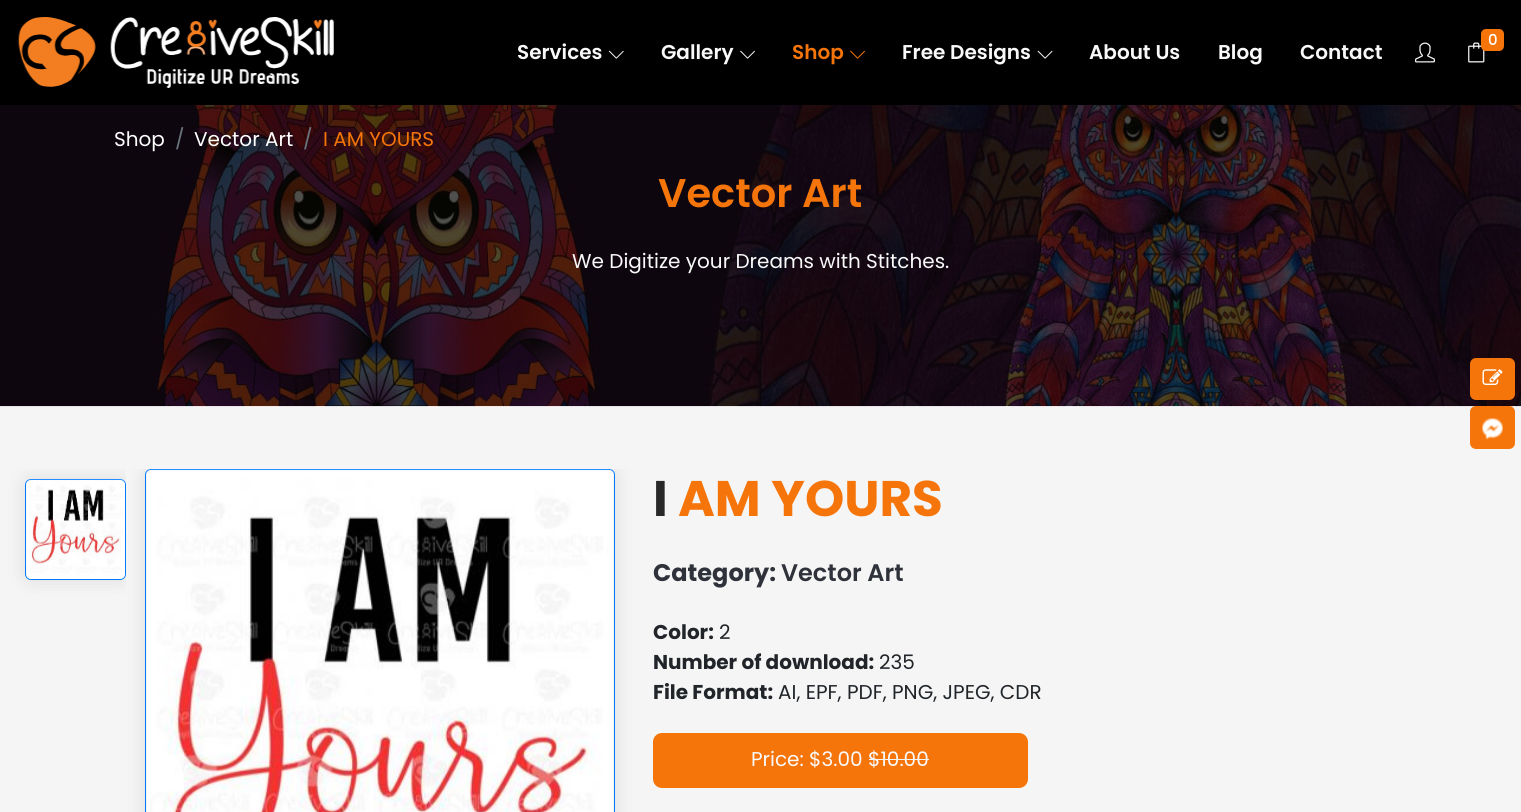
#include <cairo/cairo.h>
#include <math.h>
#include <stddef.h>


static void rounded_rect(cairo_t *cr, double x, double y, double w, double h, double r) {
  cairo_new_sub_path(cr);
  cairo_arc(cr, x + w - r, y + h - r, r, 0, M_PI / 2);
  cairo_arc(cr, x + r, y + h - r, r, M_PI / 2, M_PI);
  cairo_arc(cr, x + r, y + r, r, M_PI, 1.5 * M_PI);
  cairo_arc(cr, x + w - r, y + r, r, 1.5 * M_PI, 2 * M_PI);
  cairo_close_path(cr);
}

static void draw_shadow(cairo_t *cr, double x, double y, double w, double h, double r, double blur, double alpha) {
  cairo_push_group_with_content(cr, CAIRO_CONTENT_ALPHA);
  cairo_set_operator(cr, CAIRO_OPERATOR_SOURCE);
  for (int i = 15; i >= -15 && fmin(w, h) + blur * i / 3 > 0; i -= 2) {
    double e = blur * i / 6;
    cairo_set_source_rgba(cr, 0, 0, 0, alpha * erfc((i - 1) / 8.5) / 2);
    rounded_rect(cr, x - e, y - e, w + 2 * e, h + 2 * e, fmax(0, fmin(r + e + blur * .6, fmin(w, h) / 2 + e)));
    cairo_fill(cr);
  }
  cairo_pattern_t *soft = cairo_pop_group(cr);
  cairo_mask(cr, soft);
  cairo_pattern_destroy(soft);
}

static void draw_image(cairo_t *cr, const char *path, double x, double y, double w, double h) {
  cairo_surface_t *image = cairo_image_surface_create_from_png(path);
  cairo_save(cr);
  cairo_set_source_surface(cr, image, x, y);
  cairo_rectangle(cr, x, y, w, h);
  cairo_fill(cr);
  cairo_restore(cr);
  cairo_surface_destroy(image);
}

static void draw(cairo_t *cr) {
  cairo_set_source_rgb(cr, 245 / 255.0, 245 / 255.0, 245 / 255.0);
  cairo_paint(cr);
  cairo_set_source_rgb(cr, 0, 0, 0);
  cairo_rectangle(cr, 0, 0, 1521, 105);
  cairo_fill(cr);
  draw_image(cr, "images/1.png", 18, 17, 316, 71);
  draw_image(cr, "images/2.png", 1468, 42, 17, 21);
  cairo_set_source_rgb(cr, 245 / 255.0, 117 / 255.0, 10 / 255.0);
  rounded_rect(cr, 1481, 29, 23, 22, 5);
  cairo_fill(cr);
  draw_image(cr, "images/3.png", 1415, 42, 20, 21);
  draw_image(cr, "images/4.png", 608, 50, 16, 9);
  draw_image(cr, "images/5.png", 740, 50, 15, 9);
  draw_image(cr, "images/6.png", 850, 50, 15, 9);
  draw_image(cr, "images/7.png", 1037, 50, 16, 9);
  cairo_set_source_rgb(cr, 4 / 255.0, 4 / 255.0, 2 / 255.0);
  cairo_rectangle(cr, 0, 105, 1521, 301);
  cairo_fill(cr);
  draw_image(cr, "images/8.png", 0, 105, 1521, 302);
  cairo_set_source_rgb(cr, 245 / 255.0, 117 / 255.0, 10 / 255.0);
  rounded_rect(cr, 1470, 358, 45, 42, 6);
  cairo_fill(cr);
  draw_image(cr, "images/9.png", 1482, 369, 21, 16);
  rounded_rect(cr, 1470, 406, 45, 43, 6);
  cairo_fill(cr);
  draw_image(cr, "images/10.png", 1482, 418, 21, 22);
  cairo_save(cr);
  cairo_rectangle(cr, 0, 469, 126, 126);
  cairo_clip(cr);
  cairo_set_fill_rule(cr, CAIRO_FILL_RULE_EVEN_ODD);
  cairo_new_path(cr);
  cairo_move_to(cr, 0, 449);
  cairo_line_to(cr, 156, 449);
  cairo_line_to(cr, 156, 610);
  cairo_line_to(cr, 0, 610);
  cairo_close_path(cr);
  cairo_move_to(cr, 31, 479);
  cairo_line_to(cr, 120, 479);
  cairo_curve_to(cr, 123.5, 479, 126, 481.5, 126, 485);
  cairo_line_to(cr, 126, 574);
  cairo_curve_to(cr, 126, 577.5, 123.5, 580, 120, 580);
  cairo_line_to(cr, 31, 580);
  cairo_curve_to(cr, 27.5, 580, 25, 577.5, 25, 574);
  cairo_line_to(cr, 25, 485);
  cairo_curve_to(cr, 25, 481.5, 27.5, 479, 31, 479);
  cairo_close_path(cr);
  cairo_clip(cr);
  cairo_set_source_rgb(cr, 0, 0, 0);
  draw_shadow(cr, 25, 479, 101, 101, 6, 9.5, 0.1);
  cairo_restore(cr);
  rounded_rect(cr, 25.5, 479.5, 100, 100, 5.5);
  cairo_set_source_rgb(cr, 0, 123 / 255.0, 1);
  cairo_set_line_width(cr, 1);
  cairo_stroke(cr);
  draw_image(cr, "images/11.png", 26, 479, 99, 100);
  cairo_save(cr);
  cairo_rectangle(cr, 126, 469, 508, 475);
  cairo_clip(cr);
  cairo_set_source_rgb(cr, 0, 0, 0);
  draw_shadow(cr, 145, 469, 470, 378, 6, 9.5, 0.1);
  cairo_restore(cr);
  rounded_rect(cr, 145.5, 469.5, 469, 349, 5.5);
  cairo_stroke(cr);
  draw_image(cr, "images/12.png", 146, 469, 468, 343);
  cairo_set_source_rgb(cr, 245 / 255.0, 117 / 255.0, 10 / 255.0);
  rounded_rect(cr, 653, 733, 375, 55, 9);
  cairo_fill(cr);
  cairo_select_font_face(cr, "Poppins Medium", CAIRO_FONT_SLANT_NORMAL, CAIRO_FONT_WEIGHT_NORMAL);
  cairo_set_font_size(cr, 15);
  cairo_set_source_rgb(cr, 1, 1, 1);
  cairo_move_to(cr, 1488, 45);
  cairo_show_text(cr, "0");
  cairo_select_font_face(cr, "Poppins SemiBold", CAIRO_FONT_SLANT_NORMAL, CAIRO_FONT_WEIGHT_NORMAL);
  cairo_set_font_size(cr, 20);
  cairo_set_source_rgb(cr, 249 / 255.0, 249 / 255.0, 249 / 255.0);
  cairo_move_to(cr, 517, 59);
  cairo_show_text(cr, "Services");
  cairo_move_to(cr, 661, 59);
  cairo_show_text(cr, "Gallery");
  cairo_set_source_rgb(cr, 245 / 255.0, 117 / 255.0, 10 / 255.0);
  cairo_move_to(cr, 792, 59);
  cairo_show_text(cr, "Shop");
  cairo_set_source_rgb(cr, 249 / 255.0, 249 / 255.0, 249 / 255.0);
  cairo_move_to(cr, 902, 59);
  cairo_show_text(cr, "Free Designs");
  cairo_move_to(cr, 1089, 59);
  cairo_show_text(cr, "About Us");
  cairo_move_to(cr, 1218, 59);
  cairo_show_text(cr, "Blog");
  cairo_move_to(cr, 1300, 59);
  cairo_show_text(cr, "Contact");
  cairo_select_font_face(cr, "Poppins", CAIRO_FONT_SLANT_NORMAL, CAIRO_FONT_WEIGHT_NORMAL);
  cairo_set_source_rgb(cr, 1, 1, 1);
  cairo_move_to(cr, 114, 146);
  cairo_show_text(cr, "Shop");
  cairo_set_source_rgb(cr, 108 / 255.0, 117 / 255.0, 125 / 255.0);
  cairo_move_to(cr, 175, 146);
  cairo_show_text(cr, "/");
  cairo_set_source_rgb(cr, 1, 1, 1);
  cairo_move_to(cr, 194, 146);
  cairo_show_text(cr, "Vector Art");
  cairo_set_source_rgb(cr, 108 / 255.0, 117 / 255.0, 125 / 255.0);
  cairo_move_to(cr, 303, 146);
  cairo_show_text(cr, "/");
  cairo_set_source_rgb(cr, 245 / 255.0, 117 / 255.0, 10 / 255.0);
  cairo_move_to(cr, 323, 146);
  cairo_show_text(cr, "I AM YOURS");
  cairo_select_font_face(cr, "Poppins SemiBold", CAIRO_FONT_SLANT_NORMAL, CAIRO_FONT_WEIGHT_NORMAL);
  cairo_set_font_size(cr, 40);
  cairo_move_to(cr, 658, 207);
  cairo_show_text(cr, "Vector Art");
  cairo_select_font_face(cr, "Poppins", CAIRO_FONT_SLANT_NORMAL, CAIRO_FONT_WEIGHT_NORMAL);
  cairo_set_font_size(cr, 20);
  cairo_set_source_rgb(cr, 249 / 255.0, 249 / 255.0, 249 / 255.0);
  cairo_move_to(cr, 572, 268);
  cairo_show_text(cr, "We Digitize your Dreams with Stitches.");
  cairo_select_font_face(cr, "Poppins", CAIRO_FONT_SLANT_NORMAL, CAIRO_FONT_WEIGHT_BOLD);
  cairo_set_font_size(cr, 50);
  cairo_set_source_rgb(cr, 40 / 255.0, 40 / 255.0, 40 / 255.0);
  cairo_move_to(cr, 653, 516);
  cairo_show_text(cr, "I");
  cairo_set_source_rgb(cr, 245 / 255.0, 117 / 255.0, 10 / 255.0);
  cairo_move_to(cr, 678, 516);
  cairo_show_text(cr, "AM YOURS");
  cairo_set_font_size(cr, 24);
  cairo_set_source_rgb(cr, 47 / 255.0, 50 / 255.0, 58 / 255.0);
  cairo_move_to(cr, 653, 581);
  cairo_show_text(cr, "Category:");
  cairo_select_font_face(cr, "Poppins SemiBold", CAIRO_FONT_SLANT_NORMAL, CAIRO_FONT_WEIGHT_NORMAL);
  cairo_move_to(cr, 781, 581);
  cairo_show_text(cr, "Vector Art");
  cairo_select_font_face(cr, "Poppins", CAIRO_FONT_SLANT_NORMAL, CAIRO_FONT_WEIGHT_BOLD);
  cairo_set_font_size(cr, 20);
  cairo_set_source_rgb(cr, 33 / 255.0, 37 / 255.0, 41 / 255.0);
  cairo_move_to(cr, 653, 639);
  cairo_show_text(cr, "Color:");
  cairo_select_font_face(cr, "Poppins", CAIRO_FONT_SLANT_NORMAL, CAIRO_FONT_WEIGHT_NORMAL);
  cairo_move_to(cr, 719, 639);
  cairo_show_text(cr, "2");
  cairo_select_font_face(cr, "Poppins", CAIRO_FONT_SLANT_NORMAL, CAIRO_FONT_WEIGHT_BOLD);
  cairo_move_to(cr, 653, 669);
  cairo_show_text(cr, "Number of download:");
  cairo_select_font_face(cr, "Poppins", CAIRO_FONT_SLANT_NORMAL, CAIRO_FONT_WEIGHT_NORMAL);
  cairo_move_to(cr, 879, 669);
  cairo_show_text(cr, "235");
  cairo_select_font_face(cr, "Poppins", CAIRO_FONT_SLANT_NORMAL, CAIRO_FONT_WEIGHT_BOLD);
  cairo_move_to(cr, 653, 699);
  cairo_show_text(cr, "File Format:");
  cairo_select_font_face(cr, "Poppins", CAIRO_FONT_SLANT_NORMAL, CAIRO_FONT_WEIGHT_NORMAL);
  cairo_move_to(cr, 778, 699);
  cairo_show_text(cr, "AI, EPF, PDF, PNG, JPEG, CDR");
  cairo_set_source_rgb(cr, 249 / 255.0, 249 / 255.0, 249 / 255.0);
  cairo_move_to(cr, 751, 766);
  cairo_show_text(cr, "Price: $3.00 $10.00");
  cairo_set_source_rgb(cr, 245 / 255.0, 245 / 255.0, 245 / 255.0);
  cairo_rectangle(cr, 869, 759, 60, 1);
  cairo_fill(cr);
}

int main(void) {
  cairo_surface_t *surface = cairo_image_surface_create(CAIRO_FORMAT_RGB24, 1521, 812);
  cairo_t *cr = cairo_create(surface);
  cairo_font_options_t *options = cairo_font_options_create();
  cairo_font_options_set_hint_metrics(options, CAIRO_HINT_METRICS_OFF);
  cairo_font_options_set_hint_style(options, CAIRO_HINT_STYLE_NONE);
  cairo_set_font_options(cr, options);
  cairo_set_miter_limit(cr, 4);
  draw(cr);
  cairo_surface_write_to_png(surface, "out.png");
  cairo_font_options_destroy(options);
  cairo_destroy(cr);
  cairo_surface_destroy(surface);
  return 0;
}
